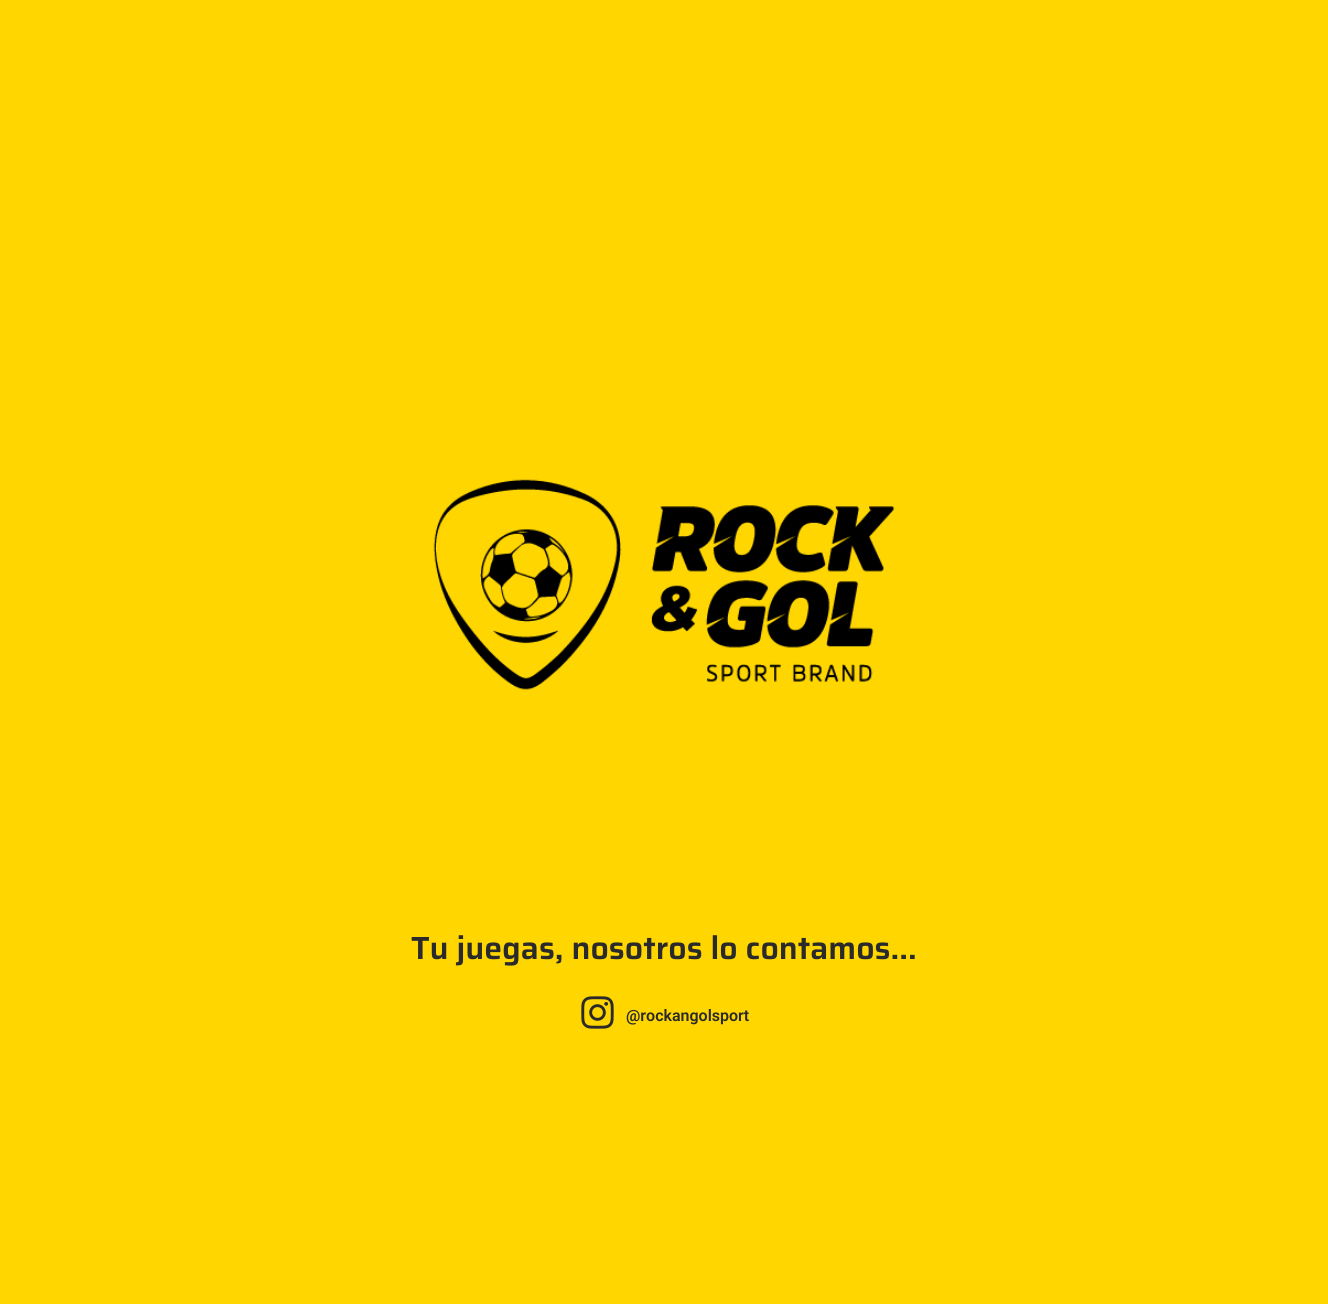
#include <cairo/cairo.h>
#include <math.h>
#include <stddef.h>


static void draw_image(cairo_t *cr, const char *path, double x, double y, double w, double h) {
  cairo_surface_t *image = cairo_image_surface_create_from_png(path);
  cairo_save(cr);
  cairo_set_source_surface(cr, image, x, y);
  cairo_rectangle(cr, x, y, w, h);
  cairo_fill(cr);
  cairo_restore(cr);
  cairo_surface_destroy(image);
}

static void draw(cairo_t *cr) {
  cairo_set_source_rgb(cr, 1, 214 / 255.0, 0);
  cairo_paint(cr);
  draw_image(cr, "images/1.png", 433, 479, 462, 211);
  draw_image(cr, "images/2.png", 581, 996, 33, 33);
  cairo_select_font_face(cr, "Saira SemiBold", CAIRO_FONT_SLANT_NORMAL, CAIRO_FONT_WEIGHT_NORMAL);
  cairo_set_font_size(cr, 32);
  cairo_set_source_rgb(cr, 42 / 255.0, 42 / 255.0, 42 / 255.0);
  cairo_move_to(cr, 411, 959);
  cairo_show_text(cr, "Tu juegas, nosotros lo contamos...");
  cairo_select_font_face(cr, "Roboto SemiBold", CAIRO_FONT_SLANT_NORMAL, CAIRO_FONT_WEIGHT_NORMAL);
  cairo_set_font_size(cr, 16);
  cairo_move_to(cr, 626, 1021);
  cairo_show_text(cr, "@rockangolsport");
}

int main(void) {
  cairo_surface_t *surface = cairo_image_surface_create(CAIRO_FORMAT_RGB24, 1328, 1304);
  cairo_t *cr = cairo_create(surface);
  cairo_font_options_t *options = cairo_font_options_create();
  cairo_font_options_set_hint_metrics(options, CAIRO_HINT_METRICS_OFF);
  cairo_font_options_set_hint_style(options, CAIRO_HINT_STYLE_NONE);
  cairo_set_font_options(cr, options);
  cairo_set_miter_limit(cr, 4);
  draw(cr);
  cairo_surface_write_to_png(surface, "out.png");
  cairo_font_options_destroy(options);
  cairo_destroy(cr);
  cairo_surface_destroy(surface);
  return 0;
}
